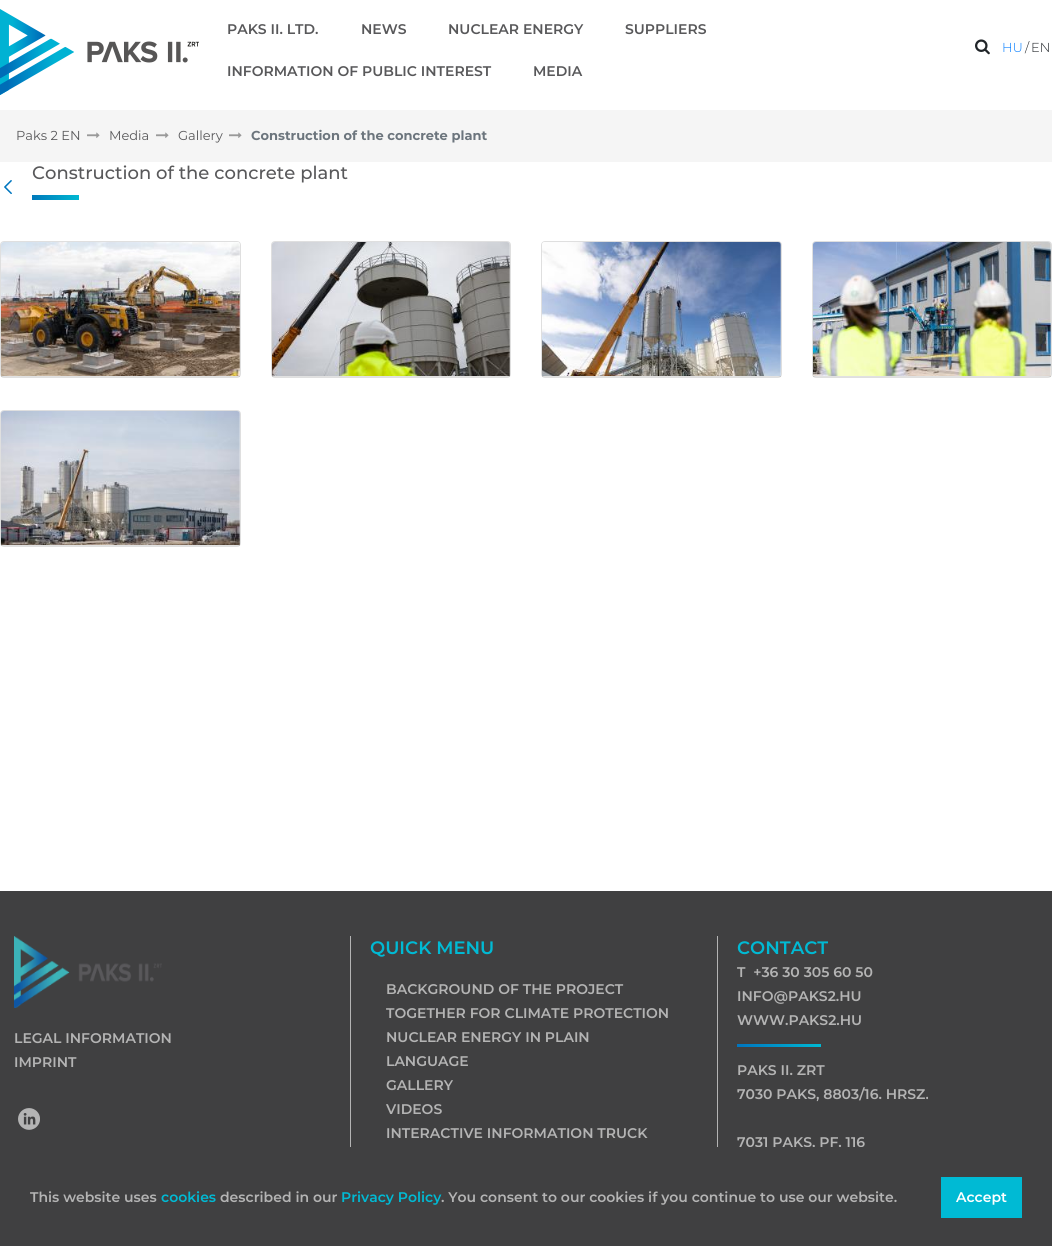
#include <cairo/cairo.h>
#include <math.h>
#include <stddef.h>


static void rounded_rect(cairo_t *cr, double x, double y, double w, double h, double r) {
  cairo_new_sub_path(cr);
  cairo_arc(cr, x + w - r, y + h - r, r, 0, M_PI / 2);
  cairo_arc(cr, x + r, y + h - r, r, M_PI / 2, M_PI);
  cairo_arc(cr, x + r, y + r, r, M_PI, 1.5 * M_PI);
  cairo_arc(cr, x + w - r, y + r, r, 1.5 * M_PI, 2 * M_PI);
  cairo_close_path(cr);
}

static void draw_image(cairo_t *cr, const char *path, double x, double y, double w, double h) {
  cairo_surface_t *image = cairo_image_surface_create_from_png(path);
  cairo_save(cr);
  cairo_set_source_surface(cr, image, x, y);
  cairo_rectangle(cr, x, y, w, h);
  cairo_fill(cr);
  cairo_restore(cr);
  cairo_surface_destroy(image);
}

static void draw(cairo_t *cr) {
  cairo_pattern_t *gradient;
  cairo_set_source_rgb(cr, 1, 1, 1);
  cairo_paint(cr);
  draw_image(cr, "images/1.png", 0, 9, 199, 86);
  draw_image(cr, "images/2.png", 975, 39, 15, 16);
  cairo_set_source_rgb(cr, 245 / 255.0, 245 / 255.0, 245 / 255.0);
  cairo_rectangle(cr, 0, 110, 1052, 52);
  cairo_fill(cr);
  draw_image(cr, "images/3.png", 87, 132, 13, 6);
  draw_image(cr, "images/3.png", 156, 132, 13, 6);
  draw_image(cr, "images/3.png", 229, 132, 13, 6);
  gradient = cairo_pattern_create_linear(32, 198, 79, 198);
  cairo_pattern_add_color_stop_rgba(gradient, 0, 0, 121 / 255.0, 187 / 255.0, 1);
  cairo_pattern_add_color_stop_rgba(gradient, 1, 0, 184 / 255.0, 210 / 255.0, 1);
  cairo_set_source(cr, gradient);
  cairo_pattern_destroy(gradient);
  cairo_rectangle(cr, 32, 195, 47, 5);
  cairo_fill(cr);
  draw_image(cr, "images/4.png", 4, 180, 8, 14);
  rounded_rect(cr, 0.5, 241.5, 240, 136, 3.5);
  cairo_set_source_rgb(cr, 223 / 255.0, 223 / 255.0, 223 / 255.0);
  cairo_set_line_width(cr, 1);
  cairo_stroke(cr);
  cairo_set_source_rgba(cr, 0, 0, 0, 0.12);
  cairo_rectangle(cr, 1, 376, 239, 1);
  cairo_fill(cr);
  draw_image(cr, "images/5.png", 1, 242, 239, 134);
  rounded_rect(cr, 271.5, 241.5, 239, 136, 3.5);
  cairo_set_source_rgb(cr, 223 / 255.0, 223 / 255.0, 223 / 255.0);
  cairo_stroke(cr);
  cairo_set_source_rgba(cr, 0, 0, 0, 0.12);
  cairo_rectangle(cr, 272, 376, 238, 1);
  cairo_fill(cr);
  draw_image(cr, "images/6.png", 272, 242, 238, 134);
  rounded_rect(cr, 541.5, 241.5, 240, 136, 3.5);
  cairo_set_source_rgb(cr, 223 / 255.0, 223 / 255.0, 223 / 255.0);
  cairo_stroke(cr);
  cairo_set_source_rgba(cr, 0, 0, 0, 0.12);
  cairo_rectangle(cr, 542, 376, 239, 1);
  cairo_fill(cr);
  draw_image(cr, "images/7.png", 542, 242, 239, 134);
  rounded_rect(cr, 812.5, 241.5, 239, 136, 3.5);
  cairo_set_source_rgb(cr, 223 / 255.0, 223 / 255.0, 223 / 255.0);
  cairo_stroke(cr);
  cairo_set_source_rgba(cr, 0, 0, 0, 0.12);
  cairo_rectangle(cr, 813, 376, 238, 1);
  cairo_fill(cr);
  draw_image(cr, "images/8.png", 813, 242, 238, 134);
  rounded_rect(cr, 0.5, 410.5, 240, 136, 3.5);
  cairo_set_source_rgb(cr, 223 / 255.0, 223 / 255.0, 223 / 255.0);
  cairo_stroke(cr);
  cairo_set_source_rgba(cr, 0, 0, 0, 0.12);
  cairo_rectangle(cr, 1, 545, 239, 1);
  cairo_fill(cr);
  draw_image(cr, "images/9.png", 1, 411, 239, 134);
  cairo_set_source_rgb(cr, 64 / 255.0, 64 / 255.0, 65 / 255.0);
  cairo_rectangle(cr, 0, 891, 1052, 256);
  cairo_fill(cr);
  draw_image(cr, "images/10.png", 14, 936, 148, 72);
  draw_image(cr, "images/11.png", 18, 1108, 22, 22);
  cairo_set_source_rgb(cr, 180 / 255.0, 180 / 255.0, 180 / 255.0);
  cairo_rectangle(cr, 350, 936, 1, 211);
  cairo_fill(cr);
  cairo_rectangle(cr, 717, 936, 1, 218);
  cairo_fill(cr);
  gradient = cairo_pattern_create_linear(821, 1046, 737, 1046);
  cairo_pattern_add_color_stop_rgba(gradient, 0, 0, 185 / 255.0, 211 / 255.0, 1);
  cairo_pattern_add_color_stop_rgba(gradient, 1, 0, 117 / 255.0, 191 / 255.0, 1);
  cairo_set_source(cr, gradient);
  cairo_pattern_destroy(gradient);
  cairo_rectangle(cr, 737, 1044, 84, 3);
  cairo_fill(cr);
  cairo_select_font_face(cr, "Montserrat SemiBold", CAIRO_FONT_SLANT_NORMAL, CAIRO_FONT_WEIGHT_NORMAL);
  cairo_set_font_size(cr, 14);
  cairo_set_source_rgb(cr, 88 / 255.0, 88 / 255.0, 90 / 255.0);
  cairo_move_to(cr, 227, 34);
  cairo_show_text(cr, "PAKS II. LTD.");
  cairo_move_to(cr, 361, 34);
  cairo_show_text(cr, "NEWS");
  cairo_move_to(cr, 448, 34);
  cairo_show_text(cr, "NUCLEAR ENERGY");
  cairo_move_to(cr, 625, 34);
  cairo_show_text(cr, "SUPPLIERS");
  cairo_move_to(cr, 227, 76);
  cairo_show_text(cr, "INFORMATION OF PUBLIC INTEREST");
  cairo_move_to(cr, 533, 76);
  cairo_show_text(cr, "MEDIA");
  cairo_select_font_face(cr, "Montserrat Light", CAIRO_FONT_SLANT_NORMAL, CAIRO_FONT_WEIGHT_NORMAL);
  cairo_set_font_size(cr, 13);
  cairo_set_source_rgb(cr, 0, 123 / 255.0, 1);
  cairo_move_to(cr, 1002, 52);
  cairo_show_text(cr, "HU");
  cairo_set_source_rgb(cr, 33 / 255.0, 37 / 255.0, 41 / 255.0);
  cairo_move_to(cr, 1025, 52);
  cairo_show_text(cr, "/");
  cairo_move_to(cr, 1031, 52);
  cairo_show_text(cr, "EN");
  cairo_select_font_face(cr, "Montserrat", CAIRO_FONT_SLANT_NORMAL, CAIRO_FONT_WEIGHT_NORMAL);
  cairo_set_source_rgb(cr, 88 / 255.0, 88 / 255.0, 90 / 255.0);
  cairo_move_to(cr, 16, 140);
  cairo_show_text(cr, "Paks 2 EN");
  cairo_move_to(cr, 109, 140);
  cairo_show_text(cr, "Media");
  cairo_move_to(cr, 178, 140);
  cairo_show_text(cr, "Gallery");
  cairo_select_font_face(cr, "Montserrat", CAIRO_FONT_SLANT_NORMAL, CAIRO_FONT_WEIGHT_BOLD);
  cairo_set_source_rgb(cr, 108 / 255.0, 117 / 255.0, 125 / 255.0);
  cairo_move_to(cr, 251, 140);
  cairo_show_text(cr, "Construction of the concrete plant");
  cairo_select_font_face(cr, "Montserrat Medium", CAIRO_FONT_SLANT_NORMAL, CAIRO_FONT_WEIGHT_NORMAL);
  cairo_set_font_size(cr, 18);
  cairo_set_source_rgb(cr, 88 / 255.0, 88 / 255.0, 90 / 255.0);
  cairo_move_to(cr, 32, 179);
  cairo_show_text(cr, "Construction of the concrete plant");
  cairo_select_font_face(cr, "Montserrat SemiBold", CAIRO_FONT_SLANT_NORMAL, CAIRO_FONT_WEIGHT_NORMAL);
  cairo_set_font_size(cr, 14);
  cairo_set_source_rgb(cr, 180 / 255.0, 180 / 255.0, 180 / 255.0);
  cairo_move_to(cr, 14, 1043);
  cairo_show_text(cr, "LEGAL INFORMATION");
  cairo_move_to(cr, 14, 1067);
  cairo_show_text(cr, "IMPRINT");
  cairo_set_font_size(cr, 18);
  cairo_set_source_rgb(cr, 0, 186 / 255.0, 212 / 255.0);
  cairo_move_to(cr, 370, 954);
  cairo_show_text(cr, "QUICK MENU");
  cairo_set_font_size(cr, 14);
  cairo_set_source_rgb(cr, 180 / 255.0, 180 / 255.0, 180 / 255.0);
  cairo_move_to(cr, 386, 994);
  cairo_show_text(cr, "BACKGROUND OF THE PROJECT");
  cairo_move_to(cr, 386, 1018);
  cairo_show_text(cr, "TOGETHER FOR CLIMATE PROTECTION");
  cairo_move_to(cr, 386, 1042);
  cairo_show_text(cr, "NUCLEAR ENERGY IN PLAIN");
  cairo_move_to(cr, 386, 1066);
  cairo_show_text(cr, "LANGUAGE");
  cairo_move_to(cr, 386, 1090);
  cairo_show_text(cr, "GALLERY");
  cairo_move_to(cr, 386, 1114);
  cairo_show_text(cr, "VIDEOS");
  cairo_move_to(cr, 386, 1138);
  cairo_show_text(cr, "INTERACTIVE INFORMATION TRUCK");
  cairo_set_font_size(cr, 18);
  cairo_set_source_rgb(cr, 0, 186 / 255.0, 212 / 255.0);
  cairo_move_to(cr, 737, 954);
  cairo_show_text(cr, "CONTACT");
  cairo_set_font_size(cr, 14);
  cairo_set_source_rgb(cr, 180 / 255.0, 180 / 255.0, 180 / 255.0);
  cairo_move_to(cr, 737, 977);
  cairo_show_text(cr, "T  +36 30 305 60 50");
  cairo_move_to(cr, 737, 1001);
  cairo_show_text(cr, "INFO@PAKS2.HU");
  cairo_move_to(cr, 737, 1025);
  cairo_show_text(cr, "WWW.PAKS2.HU");
  cairo_move_to(cr, 737, 1075);
  cairo_show_text(cr, "PAKS II. ZRT");
  cairo_move_to(cr, 737, 1099);
  cairo_show_text(cr, "7030 PAKS, 8803/16. HRSZ.");
  cairo_move_to(cr, 737, 1147);
  cairo_show_text(cr, "7031 PAKS, PF. 116");
  cairo_set_source_rgb(cr, 64 / 255.0, 64 / 255.0, 65 / 255.0);
  cairo_rectangle(cr, 0, 1147, 1052, 99);
  cairo_fill(cr);
  cairo_set_source_rgb(cr, 180 / 255.0, 180 / 255.0, 180 / 255.0);
  cairo_move_to(cr, 30, 1202);
  cairo_show_text(cr, "This website uses");
  cairo_set_source_rgb(cr, 0, 186 / 255.0, 212 / 255.0);
  cairo_move_to(cr, 161, 1202);
  cairo_show_text(cr, "cookies");
  cairo_set_source_rgb(cr, 180 / 255.0, 180 / 255.0, 180 / 255.0);
  cairo_move_to(cr, 220, 1202);
  cairo_show_text(cr, "described in our");
  cairo_set_source_rgb(cr, 0, 186 / 255.0, 212 / 255.0);
  cairo_move_to(cr, 341, 1202);
  cairo_show_text(cr, "Privacy Policy");
  cairo_set_source_rgb(cr, 180 / 255.0, 180 / 255.0, 180 / 255.0);
  cairo_move_to(cr, 441, 1202);
  cairo_show_text(cr, ". You consent to our cookies if you continue to use our website.");
  cairo_set_source_rgb(cr, 0, 186 / 255.0, 212 / 255.0);
  cairo_rectangle(cr, 941, 1177, 81, 41);
  cairo_fill(cr);
  cairo_set_source_rgb(cr, 1, 1, 1);
  cairo_move_to(cr, 956, 1202);
  cairo_show_text(cr, "Accept");
}

int main(void) {
  cairo_surface_t *surface = cairo_image_surface_create(CAIRO_FORMAT_RGB24, 1052, 1246);
  cairo_t *cr = cairo_create(surface);
  cairo_font_options_t *options = cairo_font_options_create();
  cairo_font_options_set_hint_metrics(options, CAIRO_HINT_METRICS_OFF);
  cairo_font_options_set_hint_style(options, CAIRO_HINT_STYLE_NONE);
  cairo_set_font_options(cr, options);
  cairo_set_miter_limit(cr, 4);
  draw(cr);
  cairo_surface_write_to_png(surface, "out.png");
  cairo_font_options_destroy(options);
  cairo_destroy(cr);
  cairo_surface_destroy(surface);
  return 0;
}
